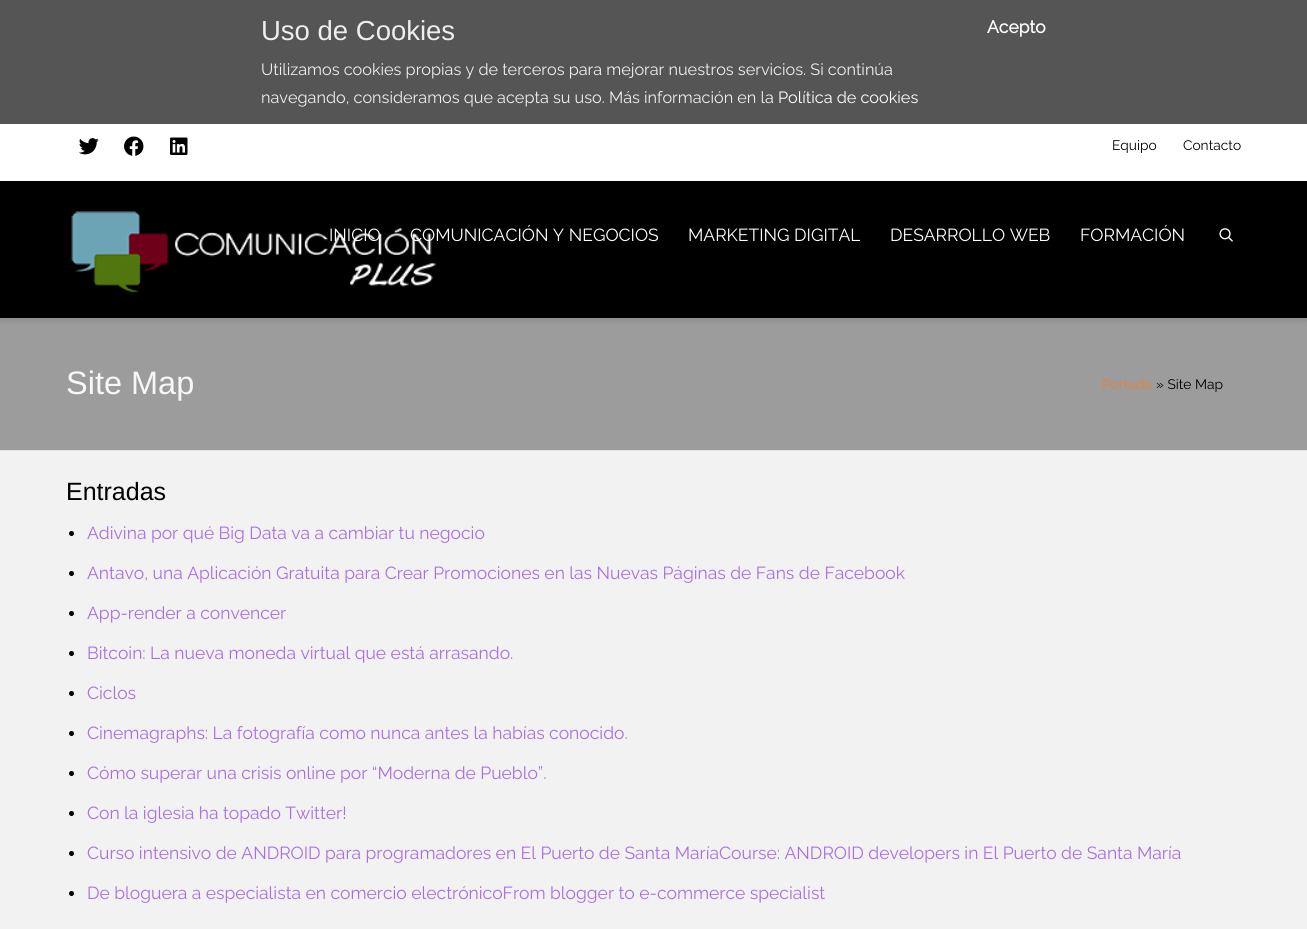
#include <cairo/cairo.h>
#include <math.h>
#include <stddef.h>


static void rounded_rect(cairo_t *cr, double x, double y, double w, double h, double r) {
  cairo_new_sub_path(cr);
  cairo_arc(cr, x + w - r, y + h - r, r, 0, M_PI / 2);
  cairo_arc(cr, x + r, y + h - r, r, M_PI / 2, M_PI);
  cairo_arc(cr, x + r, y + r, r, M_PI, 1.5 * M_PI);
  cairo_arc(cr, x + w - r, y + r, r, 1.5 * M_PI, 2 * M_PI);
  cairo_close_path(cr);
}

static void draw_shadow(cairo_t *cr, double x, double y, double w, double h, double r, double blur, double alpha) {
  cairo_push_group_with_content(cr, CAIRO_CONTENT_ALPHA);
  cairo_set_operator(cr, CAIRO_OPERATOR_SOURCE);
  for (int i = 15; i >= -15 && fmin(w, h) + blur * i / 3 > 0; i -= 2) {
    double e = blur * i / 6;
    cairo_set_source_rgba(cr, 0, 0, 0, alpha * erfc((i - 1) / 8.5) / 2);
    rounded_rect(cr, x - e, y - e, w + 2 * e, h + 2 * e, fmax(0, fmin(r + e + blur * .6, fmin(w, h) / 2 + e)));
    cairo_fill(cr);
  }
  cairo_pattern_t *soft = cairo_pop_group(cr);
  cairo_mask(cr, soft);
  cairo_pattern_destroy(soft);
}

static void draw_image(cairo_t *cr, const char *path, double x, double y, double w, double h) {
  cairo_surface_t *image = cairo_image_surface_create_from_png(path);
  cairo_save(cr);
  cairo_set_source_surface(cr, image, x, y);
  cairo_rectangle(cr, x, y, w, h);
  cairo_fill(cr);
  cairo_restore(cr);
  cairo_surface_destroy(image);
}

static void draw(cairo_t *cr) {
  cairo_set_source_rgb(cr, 85 / 255.0, 85 / 255.0, 85 / 255.0);
  cairo_paint(cr);
  cairo_set_source_rgb(cr, 156 / 255.0, 156 / 255.0, 156 / 255.0);
  cairo_rectangle(cr, 0, 318, 1307, 132);
  cairo_fill(cr);
  cairo_set_source_rgb(cr, 0, 0, 0);
  draw_shadow(cr, 0, 185, 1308, 136, 0, 3, 0.1);
  cairo_set_source_rgb(cr, 1, 1, 1);
  cairo_rectangle(cr, 0, 124, 1307, 57);
  cairo_fill(cr);
  draw_image(cr, "images/1.png", 79, 138, 20, 17);
  draw_image(cr, "images/2.png", 124, 136, 20, 20);
  draw_image(cr, "images/3.png", 170, 137, 18, 18);
  cairo_set_source_rgb(cr, 0, 0, 0);
  cairo_rectangle(cr, 0, 181, 1307, 137);
  cairo_fill(cr);
  draw_image(cr, "images/5.png", 1219, 228, 14, 14);
  cairo_set_source_rgb(cr, 242 / 255.0, 242 / 255.0, 242 / 255.0);
  cairo_rectangle(cr, 0, 451, 1307, 478);
  cairo_fill(cr);
  cairo_set_source_rgb(cr, 228 / 255.0, 228 / 255.0, 228 / 255.0);
  cairo_rectangle(cr, 0, 450, 1307, 1);
  cairo_fill(cr);
  cairo_set_source_rgb(cr, 0, 0, 0);
  cairo_arc(cr, 71.5, 533.5, 2.5, 0, 2 * M_PI);
  cairo_fill(cr);
  cairo_arc(cr, 71.5, 573.5, 2.5, 0, 2 * M_PI);
  cairo_fill(cr);
  cairo_arc(cr, 71.5, 613.5, 2.5, 0, 2 * M_PI);
  cairo_fill(cr);
  cairo_arc(cr, 71.5, 653.5, 2.5, 0, 2 * M_PI);
  cairo_fill(cr);
  cairo_arc(cr, 71.5, 693.5, 2.5, 0, 2 * M_PI);
  cairo_fill(cr);
  cairo_arc(cr, 71.5, 733.5, 2.5, 0, 2 * M_PI);
  cairo_fill(cr);
  cairo_arc(cr, 71.5, 773.5, 2.5, 0, 2 * M_PI);
  cairo_fill(cr);
  cairo_arc(cr, 71.5, 813.5, 2.5, 0, 2 * M_PI);
  cairo_fill(cr);
  cairo_arc(cr, 71.5, 853.5, 2.5, 0, 2 * M_PI);
  cairo_fill(cr);
  cairo_arc(cr, 71.5, 893.5, 2.5, 0, 2 * M_PI);
  cairo_fill(cr);
  cairo_select_font_face(cr, "Liberation Sans", CAIRO_FONT_SLANT_NORMAL, CAIRO_FONT_WEIGHT_NORMAL);
  cairo_set_font_size(cr, 27.5);
  cairo_set_source_rgb(cr, 238 / 255.0, 238 / 255.0, 238 / 255.0);
  cairo_move_to(cr, 261, 40);
  cairo_show_text(cr, "Uso de Cookies");
  cairo_select_font_face(cr, "Raleway Thin", CAIRO_FONT_SLANT_NORMAL, CAIRO_FONT_WEIGHT_NORMAL);
  cairo_set_font_size(cr, 16.25);
  cairo_move_to(cr, 261, 75);
  cairo_show_text(cr, "Utilizamos cookies propias y de terceros para mejorar nuestros servicios. Si continúa");
  cairo_move_to(cr, 261, 103);
  cairo_show_text(cr, "navegando, consideramos que acepta su uso. Más información en la");
  cairo_set_source_rgb(cr, 1, 1, 1);
  cairo_move_to(cr, 778, 103);
  cairo_show_text(cr, "Política de cookies");
  cairo_select_font_face(cr, "Raleway", CAIRO_FONT_SLANT_NORMAL, CAIRO_FONT_WEIGHT_BOLD);
  cairo_set_font_size(cr, 17.5);
  cairo_move_to(cr, 987, 33);
  cairo_show_text(cr, "Acepto");
  cairo_select_font_face(cr, "Raleway Thin", CAIRO_FONT_SLANT_NORMAL, CAIRO_FONT_WEIGHT_NORMAL);
  cairo_set_font_size(cr, 13.75);
  cairo_set_source_rgb(cr, 0, 0, 0);
  cairo_move_to(cr, 1112, 150);
  cairo_show_text(cr, "Equipo");
  cairo_move_to(cr, 1183, 150);
  cairo_show_text(cr, "Contacto");
  cairo_set_font_size(cr, 17.5);
  cairo_set_source_rgb(cr, 1, 1, 1);
  cairo_move_to(cr, 329, 241);
  cairo_show_text(cr, "INICIO");
  cairo_move_to(cr, 410, 241);
  cairo_show_text(cr, "COMUNICACIÓN Y NEGOCIOS");
  draw_image(cr, "images/4.png", 71, 211, 366, 82);
  cairo_move_to(cr, 688, 241);
  cairo_show_text(cr, "MARKETING DIGITAL");
  cairo_move_to(cr, 890, 241);
  cairo_show_text(cr, "DESARROLLO WEB");
  cairo_move_to(cr, 1080, 241);
  cairo_show_text(cr, "FORMACIÓN");
  cairo_select_font_face(cr, "Liberation Sans", CAIRO_FONT_SLANT_NORMAL, CAIRO_FONT_WEIGHT_NORMAL);
  cairo_set_font_size(cr, 32.5);
  cairo_set_source_rgb(cr, 247 / 255.0, 247 / 255.0, 247 / 255.0);
  cairo_move_to(cr, 66, 394);
  cairo_show_text(cr, "Site Map");
  cairo_select_font_face(cr, "Raleway Thin", CAIRO_FONT_SLANT_NORMAL, CAIRO_FONT_WEIGHT_NORMAL);
  cairo_set_font_size(cr, 13.75);
  cairo_set_source_rgb(cr, 234 / 255.0, 126 / 255.0, 52 / 255.0);
  cairo_move_to(cr, 1102, 389);
  cairo_show_text(cr, "Portada");
  cairo_set_source_rgb(cr, 0, 0, 0);
  cairo_move_to(cr, 1156, 389);
  cairo_show_text(cr, "» Site Map");
  cairo_select_font_face(cr, "Liberation Sans", CAIRO_FONT_SLANT_NORMAL, CAIRO_FONT_WEIGHT_NORMAL);
  cairo_set_font_size(cr, 25);
  cairo_move_to(cr, 66, 500);
  cairo_show_text(cr, "Entradas");
  cairo_select_font_face(cr, "Raleway Thin", CAIRO_FONT_SLANT_NORMAL, CAIRO_FONT_WEIGHT_NORMAL);
  cairo_set_font_size(cr, 17.5);
  cairo_set_source_rgb(cr, 169 / 255.0, 111 / 255.0, 226 / 255.0);
  cairo_move_to(cr, 87, 539);
  cairo_show_text(cr, "Adivina por qué Big Data va a cambiar tu negocio");
  cairo_move_to(cr, 87, 579);
  cairo_show_text(cr, "Antavo, una Aplicación Gratuita para Crear Promociones en las Nuevas Páginas de Fans de Facebook");
  cairo_move_to(cr, 87, 619);
  cairo_show_text(cr, "App-render a convencer");
  cairo_move_to(cr, 87, 659);
  cairo_show_text(cr, "Bitcoin: La nueva moneda virtual que está arrasando.");
  cairo_move_to(cr, 87, 699);
  cairo_show_text(cr, "Ciclos");
  cairo_move_to(cr, 87, 739);
  cairo_show_text(cr, "Cinemagraphs: La fotografía como nunca antes la habías conocido.");
  cairo_move_to(cr, 87, 779);
  cairo_show_text(cr, "Cómo superar una crisis online por “Moderna de Pueblo”.");
  cairo_move_to(cr, 87, 819);
  cairo_show_text(cr, "Con la iglesia ha topado Twitter!");
  cairo_move_to(cr, 87, 859);
  cairo_show_text(cr, "Curso intensivo de ANDROID para programadores en El Puerto de Santa MaríaCourse: ANDROID developers in El Puerto de Santa María");
  cairo_move_to(cr, 87, 899);
  cairo_show_text(cr, "De bloguera a especialista en comercio electrónicoFrom blogger to e-commerce specialist");
}

int main(void) {
  cairo_surface_t *surface = cairo_image_surface_create(CAIRO_FORMAT_RGB24, 1307, 929);
  cairo_t *cr = cairo_create(surface);
  cairo_font_options_t *options = cairo_font_options_create();
  cairo_font_options_set_hint_metrics(options, CAIRO_HINT_METRICS_OFF);
  cairo_font_options_set_hint_style(options, CAIRO_HINT_STYLE_NONE);
  cairo_set_font_options(cr, options);
  cairo_set_miter_limit(cr, 4);
  draw(cr);
  cairo_surface_write_to_png(surface, "out.png");
  cairo_font_options_destroy(options);
  cairo_destroy(cr);
  cairo_surface_destroy(surface);
  return 0;
}
